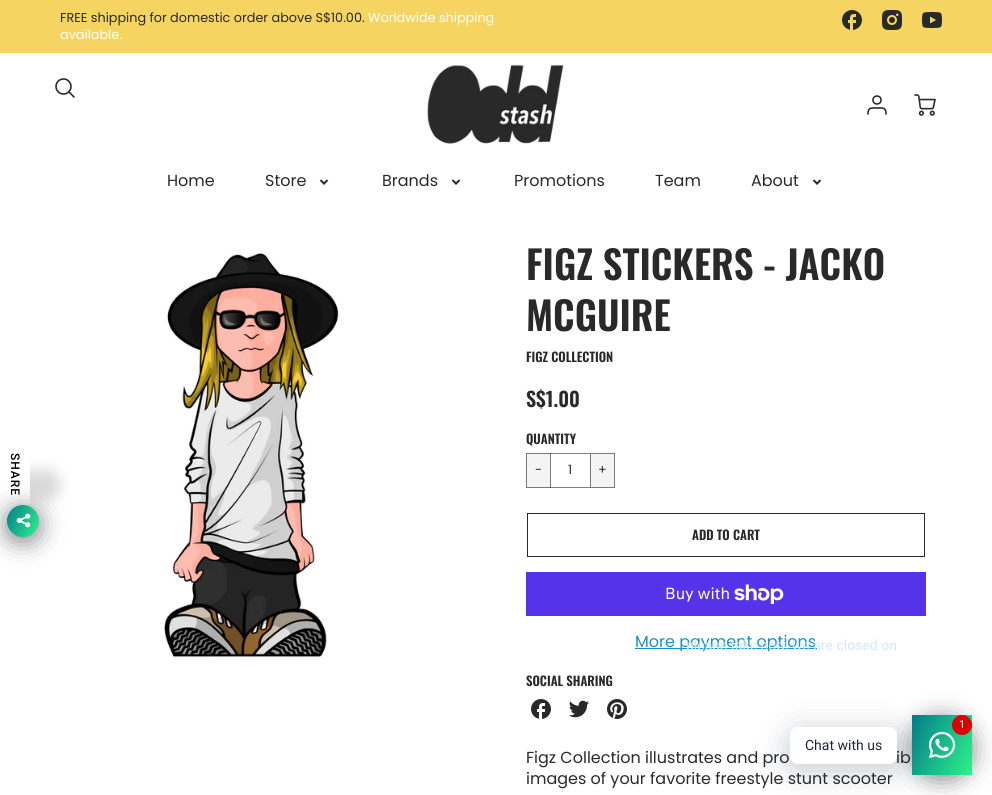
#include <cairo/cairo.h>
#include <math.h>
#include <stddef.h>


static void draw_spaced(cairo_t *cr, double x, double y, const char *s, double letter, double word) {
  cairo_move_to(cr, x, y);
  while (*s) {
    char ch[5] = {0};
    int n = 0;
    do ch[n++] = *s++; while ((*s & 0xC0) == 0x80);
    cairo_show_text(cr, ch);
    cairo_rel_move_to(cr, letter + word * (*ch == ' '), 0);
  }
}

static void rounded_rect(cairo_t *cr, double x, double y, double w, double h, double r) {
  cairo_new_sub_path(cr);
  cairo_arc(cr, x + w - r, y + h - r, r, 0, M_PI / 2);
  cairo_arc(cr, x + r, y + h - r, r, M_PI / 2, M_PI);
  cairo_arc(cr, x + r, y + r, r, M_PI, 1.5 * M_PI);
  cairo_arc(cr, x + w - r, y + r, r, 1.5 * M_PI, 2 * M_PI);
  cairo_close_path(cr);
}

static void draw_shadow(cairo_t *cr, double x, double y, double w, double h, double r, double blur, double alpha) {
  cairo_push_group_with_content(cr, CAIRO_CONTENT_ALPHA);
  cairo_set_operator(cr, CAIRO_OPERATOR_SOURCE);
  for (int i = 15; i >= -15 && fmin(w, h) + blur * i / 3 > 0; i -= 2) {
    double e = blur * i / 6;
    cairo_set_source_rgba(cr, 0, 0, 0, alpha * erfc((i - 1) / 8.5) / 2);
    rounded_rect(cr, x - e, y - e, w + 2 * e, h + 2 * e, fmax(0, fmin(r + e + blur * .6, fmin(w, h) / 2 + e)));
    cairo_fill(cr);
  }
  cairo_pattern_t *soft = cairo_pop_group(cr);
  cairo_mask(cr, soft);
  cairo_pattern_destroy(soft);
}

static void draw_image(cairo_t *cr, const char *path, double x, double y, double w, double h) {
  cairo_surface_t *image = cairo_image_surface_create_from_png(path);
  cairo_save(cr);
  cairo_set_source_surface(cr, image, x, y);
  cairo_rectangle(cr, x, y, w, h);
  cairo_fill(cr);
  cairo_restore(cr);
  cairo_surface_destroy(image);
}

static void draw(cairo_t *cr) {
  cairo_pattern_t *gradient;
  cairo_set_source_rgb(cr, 245 / 255.0, 212 / 255.0, 97 / 255.0);
  cairo_paint(cr);
  draw_image(cr, "images/1.png", 842, 10, 20, 20);
  draw_image(cr, "images/2.png", 882, 10, 20, 20);
  draw_image(cr, "images/3.png", 922, 12, 20, 16);
  cairo_set_source_rgb(cr, 1, 1, 1);
  cairo_rectangle(cr, 0, 53, 992, 742);
  cairo_fill(cr);
  cairo_arc(cr, 63.5, 86.5, 7.5, 0, 2 * M_PI);
  cairo_set_source_rgb(cr, 41 / 255.0, 41 / 255.0, 41 / 255.0);
  cairo_set_line_width(cr, 1.6);
  cairo_stroke(cr);
  cairo_new_path(cr);
  cairo_move_to(cr, 74, 97);
  cairo_line_to(cr, 69, 92);
  cairo_set_line_cap(cr, CAIRO_LINE_CAP_ROUND);
  cairo_set_line_join(cr, CAIRO_LINE_JOIN_ROUND);
  cairo_stroke(cr);
  draw_image(cr, "images/4.png", 427, 64, 137, 80);
  cairo_arc(cr, 877, 100, 4, 0, 2 * M_PI);
  cairo_set_line_cap(cr, CAIRO_LINE_CAP_BUTT);
  cairo_set_line_join(cr, CAIRO_LINE_JOIN_MITER);
  cairo_stroke(cr);
  cairo_new_path(cr);
  cairo_move_to(cr, 886, 114);
  cairo_curve_to(cr, 886, 107, 882.5, 108, 877, 108);
  cairo_curve_to(cr, 871.5, 108, 868, 107, 868, 114);
  cairo_set_line_cap(cr, CAIRO_LINE_CAP_ROUND);
  cairo_set_line_join(cr, CAIRO_LINE_JOIN_ROUND);
  cairo_stroke(cr);
  draw_image(cr, "images/5.png", 914, 94, 22, 22);
  draw_image(cr, "images/6.png", 319, 179, 10, 6);
  draw_image(cr, "images/6.png", 451, 179, 10, 6);
  draw_image(cr, "images/6.png", 812, 179, 10, 6);
  cairo_set_source_rgb(cr, 244 / 255.0, 244 / 255.0, 244 / 255.0);
  cairo_rectangle(cr, 526, 453, 25, 35);
  cairo_fill(cr);
  draw_image(cr, "images/7.png", 163, 253, 177, 407);
  cairo_set_source_rgb(cr, 126 / 255.0, 126 / 255.0, 126 / 255.0);
  cairo_rectangle(cr, 550, 453, 40, 1);
  cairo_fill(cr);
  cairo_set_source_rgb(cr, 122 / 255.0, 122 / 255.0, 122 / 255.0);
  cairo_rectangle(cr, 550, 453, 1, 1);
  cairo_fill(cr);
  cairo_set_source_rgb(cr, 126 / 255.0, 126 / 255.0, 126 / 255.0);
  cairo_rectangle(cr, 550, 487, 40, 1);
  cairo_fill(cr);
  cairo_set_source_rgb(cr, 122 / 255.0, 122 / 255.0, 122 / 255.0);
  cairo_rectangle(cr, 550, 487, 1, 1);
  cairo_fill(cr);
  cairo_rectangle(cr, 526.5, 453.5, 24, 34);
  cairo_set_source_rgba(cr, 40 / 255.0, 40 / 255.0, 40 / 255.0, 0.6);
  cairo_set_line_width(cr, 1);
  cairo_set_line_cap(cr, CAIRO_LINE_CAP_BUTT);
  cairo_set_line_join(cr, CAIRO_LINE_JOIN_MITER);
  cairo_stroke(cr);
  cairo_set_source_rgb(cr, 244 / 255.0, 244 / 255.0, 244 / 255.0);
  cairo_rectangle(cr, 590.5, 453.5, 24, 34);
  cairo_fill_preserve(cr);
  cairo_set_source_rgb(cr, 122 / 255.0, 122 / 255.0, 122 / 255.0);
  cairo_stroke(cr);
  cairo_rectangle(cr, 527.5, 513.5, 397, 43);
  cairo_set_source_rgb(cr, 41 / 255.0, 41 / 255.0, 41 / 255.0);
  cairo_stroke(cr);
  cairo_set_source_rgb(cr, 84 / 255.0, 51 / 255.0, 235 / 255.0);
  cairo_rectangle(cr, 526, 572, 400, 44);
  cairo_fill(cr);
  draw_image(cr, "images/8.png", 734, 584, 50, 20);
  cairo_set_source_rgb(cr, 25 / 255.0, 144 / 255.0, 198 / 255.0);
  cairo_rectangle(cr, 635, 648, 182, 1);
  cairo_fill(cr);
  draw_image(cr, "images/9.png", 531, 699, 20, 20);
  draw_image(cr, "images/10.png", 569, 700, 20, 18);
  draw_image(cr, "images/11.png", 607, 699, 20, 20);
  cairo_set_source_rgb(cr, 0, 0, 0);
  draw_shadow(cr, -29, 470, 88, 30, 28, 7, 0.15);
  cairo_set_source_rgb(cr, 1, 1, 1);
  cairo_new_path(cr);
  cairo_move_to(cr, 0, 526);
  cairo_line_to(cr, 0, 438);
  cairo_line_to(cr, 26, 438);
  cairo_curve_to(cr, 28, 438, 30, 440, 30, 442);
  cairo_line_to(cr, 30, 498);
  cairo_curve_to(cr, 30, 514, 17, 526, 2, 526);
  cairo_close_path(cr);
  cairo_fill(cr);
  cairo_set_source_rgb(cr, 2 / 255.0, 6 / 255.0, 16 / 255.0);
  draw_shadow(cr, 7, 509, 32, 32, 16, 12, 0.5);
  gradient = cairo_pattern_create_linear(3.7, 512, 42, 530);
  cairo_pattern_add_color_stop_rgba(gradient, 0, 4 / 255.0, 124 / 255.0, 141 / 255.0, 1);
  cairo_pattern_add_color_stop_rgba(gradient, 1, 47 / 255.0, 242 / 255.0, 137 / 255.0, 1);
  cairo_set_source(cr, gradient);
  cairo_pattern_destroy(gradient);
  cairo_arc(cr, 23, 521, 16, 0, 2 * M_PI);
  cairo_fill(cr);
  draw_image(cr, "images/12.png", 16, 513, 15, 15);
  cairo_set_source_rgb(cr, 2 / 255.0, 6 / 255.0, 16 / 255.0);
  draw_shadow(cr, 912, 719, 60, 60, 30, 12, 0.5);
  gradient = cairo_pattern_create_linear(906, 728, 978, 762);
  cairo_pattern_add_color_stop_rgba(gradient, 0, 4 / 255.0, 124 / 255.0, 141 / 255.0, 1);
  cairo_pattern_add_color_stop_rgba(gradient, 1, 47 / 255.0, 242 / 255.0, 137 / 255.0, 1);
  cairo_set_source(cr, gradient);
  cairo_pattern_destroy(gradient);
  cairo_rectangle(cr, 912, 715, 60, 60);
  cairo_fill(cr);
  cairo_set_source_rgb(cr, 0, 18 / 255.0, 46 / 255.0);
  draw_shadow(cr, 790, 733, 107, 37, 8, 16, 0.24);
  draw_image(cr, "images/13.png", 929, 731, 27, 27);
  cairo_set_source_rgb(cr, 221 / 255.0, 0, 0);
  cairo_arc(cr, 962, 725, 10, 0, 2 * M_PI);
  cairo_fill(cr);
  cairo_set_source_rgb(cr, 1, 1, 1);
  rounded_rect(cr, 790, 727, 107, 37, 8);
  cairo_fill(cr);
  cairo_select_font_face(cr, "Poppins", CAIRO_FONT_SLANT_NORMAL, CAIRO_FONT_WEIGHT_NORMAL);
  cairo_set_font_size(cr, 12.8);
  cairo_set_source_rgb(cr, 41 / 255.0, 41 / 255.0, 41 / 255.0);
  cairo_move_to(cr, 60, 22);
  cairo_show_text(cr, "FREE shipping for domestic order above S$10.00.");
  cairo_set_source_rgb(cr, 1, 1, 1);
  cairo_move_to(cr, 368, 22);
  cairo_show_text(cr, "Worldwide shipping");
  cairo_move_to(cr, 60, 39);
  cairo_show_text(cr, "available.");
  cairo_set_font_size(cr, 16);
  cairo_set_source_rgb(cr, 41 / 255.0, 41 / 255.0, 41 / 255.0);
  cairo_move_to(cr, 167, 186);
  cairo_show_text(cr, "Home");
  cairo_move_to(cr, 265, 186);
  cairo_show_text(cr, "Store");
  cairo_move_to(cr, 382, 186);
  cairo_show_text(cr, "Brands");
  cairo_move_to(cr, 514, 186);
  cairo_show_text(cr, "Promotions");
  cairo_move_to(cr, 655, 186);
  cairo_show_text(cr, "Team");
  cairo_move_to(cr, 751, 186);
  cairo_show_text(cr, "About");
  cairo_select_font_face(cr, "Oswald SemiBold", CAIRO_FONT_SLANT_NORMAL, CAIRO_FONT_WEIGHT_NORMAL);
  cairo_set_font_size(cr, 39);
  cairo_move_to(cr, 526, 280);
  cairo_show_text(cr, "FIGZ STICKERS - JACKO");
  cairo_move_to(cr, 526, 331);
  cairo_show_text(cr, "MCGUIRE");
  cairo_set_font_size(cr, 12.8);
  cairo_move_to(cr, 526, 362);
  cairo_show_text(cr, "FIGZ COLLECTION");
  cairo_set_font_size(cr, 20);
  cairo_move_to(cr, 526, 407);
  cairo_show_text(cr, "S$1.00");
  cairo_set_font_size(cr, 12.8);
  cairo_move_to(cr, 526, 444);
  cairo_show_text(cr, "QUANTITY");
  cairo_select_font_face(cr, "Poppins", CAIRO_FONT_SLANT_NORMAL, CAIRO_FONT_WEIGHT_NORMAL);
  cairo_move_to(cr, 535, 474);
  cairo_show_text(cr, "-");
  cairo_move_to(cr, 568, 474);
  cairo_show_text(cr, "1");
  cairo_move_to(cr, 598, 474);
  cairo_show_text(cr, "+");
  cairo_select_font_face(cr, "Oswald SemiBold", CAIRO_FONT_SLANT_NORMAL, CAIRO_FONT_WEIGHT_NORMAL);
  cairo_move_to(cr, 692, 540);
  cairo_show_text(cr, "ADD TO CART");
  cairo_select_font_face(cr, "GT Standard", CAIRO_FONT_SLANT_NORMAL, CAIRO_FONT_WEIGHT_NORMAL);
  cairo_set_font_size(cr, 16);
  cairo_set_source_rgb(cr, 1, 1, 1);
  cairo_move_to(cr, 665, 599);
  cairo_show_text(cr, "Buy with");
  cairo_select_font_face(cr, "Poppins", CAIRO_FONT_SLANT_NORMAL, CAIRO_FONT_WEIGHT_NORMAL);
  cairo_set_source_rgb(cr, 25 / 255.0, 144 / 255.0, 198 / 255.0);
  cairo_move_to(cr, 635, 647);
  cairo_show_text(cr, "More payment options");
  cairo_select_font_face(cr, "Oswald SemiBold", CAIRO_FONT_SLANT_NORMAL, CAIRO_FONT_WEIGHT_NORMAL);
  cairo_set_font_size(cr, 12.8);
  cairo_set_source_rgb(cr, 41 / 255.0, 41 / 255.0, 41 / 255.0);
  cairo_move_to(cr, 526, 686);
  cairo_show_text(cr, "SOCIAL SHARING");
  cairo_select_font_face(cr, "Poppins", CAIRO_FONT_SLANT_NORMAL, CAIRO_FONT_WEIGHT_NORMAL);
  cairo_set_font_size(cr, 16);
  cairo_move_to(cr, 526, 763);
  cairo_show_text(cr, "Figz Collection illustrates and pro");
  cairo_move_to(cr, 896, 763);
  cairo_show_text(cr, "ib");
  cairo_move_to(cr, 526, 784);
  cairo_show_text(cr, "images of your favorite freestyle stunt scooter");
  cairo_save(cr);
  cairo_new_path(cr);
  cairo_move_to(cr, 30, 453.5);
  cairo_line_to(cr, 30, 496.5);
  cairo_line_to(cr, 0, 496.5);
  cairo_line_to(cr, 0, 453.5);
  cairo_close_path(cr);
  cairo_clip(cr);
  cairo_select_font_face(cr, "Roboto Medium", CAIRO_FONT_SLANT_NORMAL, CAIRO_FONT_WEIGHT_NORMAL);
  cairo_set_font_size(cr, 12);
  cairo_set_source_rgb(cr, 0, 0, 0);
  cairo_save(cr);
  cairo_translate(cr, 11, 453);
  cairo_rotate(cr, 90 * M_PI / 180);
  draw_spaced(cr, 0, 0, "SHARE", 1, 0);
  cairo_restore(cr);
  cairo_restore(cr);
  cairo_select_font_face(cr, "Roboto", CAIRO_FONT_SLANT_NORMAL, CAIRO_FONT_WEIGHT_NORMAL);
  cairo_set_font_size(cr, 14);
  cairo_set_source_rgb(cr, 210 / 255.0, 233 / 255.0, 244 / 255.0);
  cairo_move_to(cr, 686, 650);
  cairo_show_text(cr, "please take note we are closed on");
  cairo_set_font_size(cr, 11);
  cairo_set_source_rgb(cr, 1, 1, 1);
  cairo_move_to(cr, 959, 728);
  cairo_show_text(cr, "1");
  cairo_set_font_size(cr, 14);
  cairo_set_source_rgb(cr, 30 / 255.0, 36 / 255.0, 51 / 255.0);
  cairo_move_to(cr, 805, 750);
  cairo_show_text(cr, "Chat with us");
}

int main(void) {
  cairo_surface_t *surface = cairo_image_surface_create(CAIRO_FORMAT_RGB24, 992, 795);
  cairo_t *cr = cairo_create(surface);
  cairo_font_options_t *options = cairo_font_options_create();
  cairo_font_options_set_hint_metrics(options, CAIRO_HINT_METRICS_OFF);
  cairo_font_options_set_hint_style(options, CAIRO_HINT_STYLE_NONE);
  cairo_set_font_options(cr, options);
  cairo_set_miter_limit(cr, 4);
  draw(cr);
  cairo_surface_write_to_png(surface, "out.png");
  cairo_font_options_destroy(options);
  cairo_destroy(cr);
  cairo_surface_destroy(surface);
  return 0;
}
